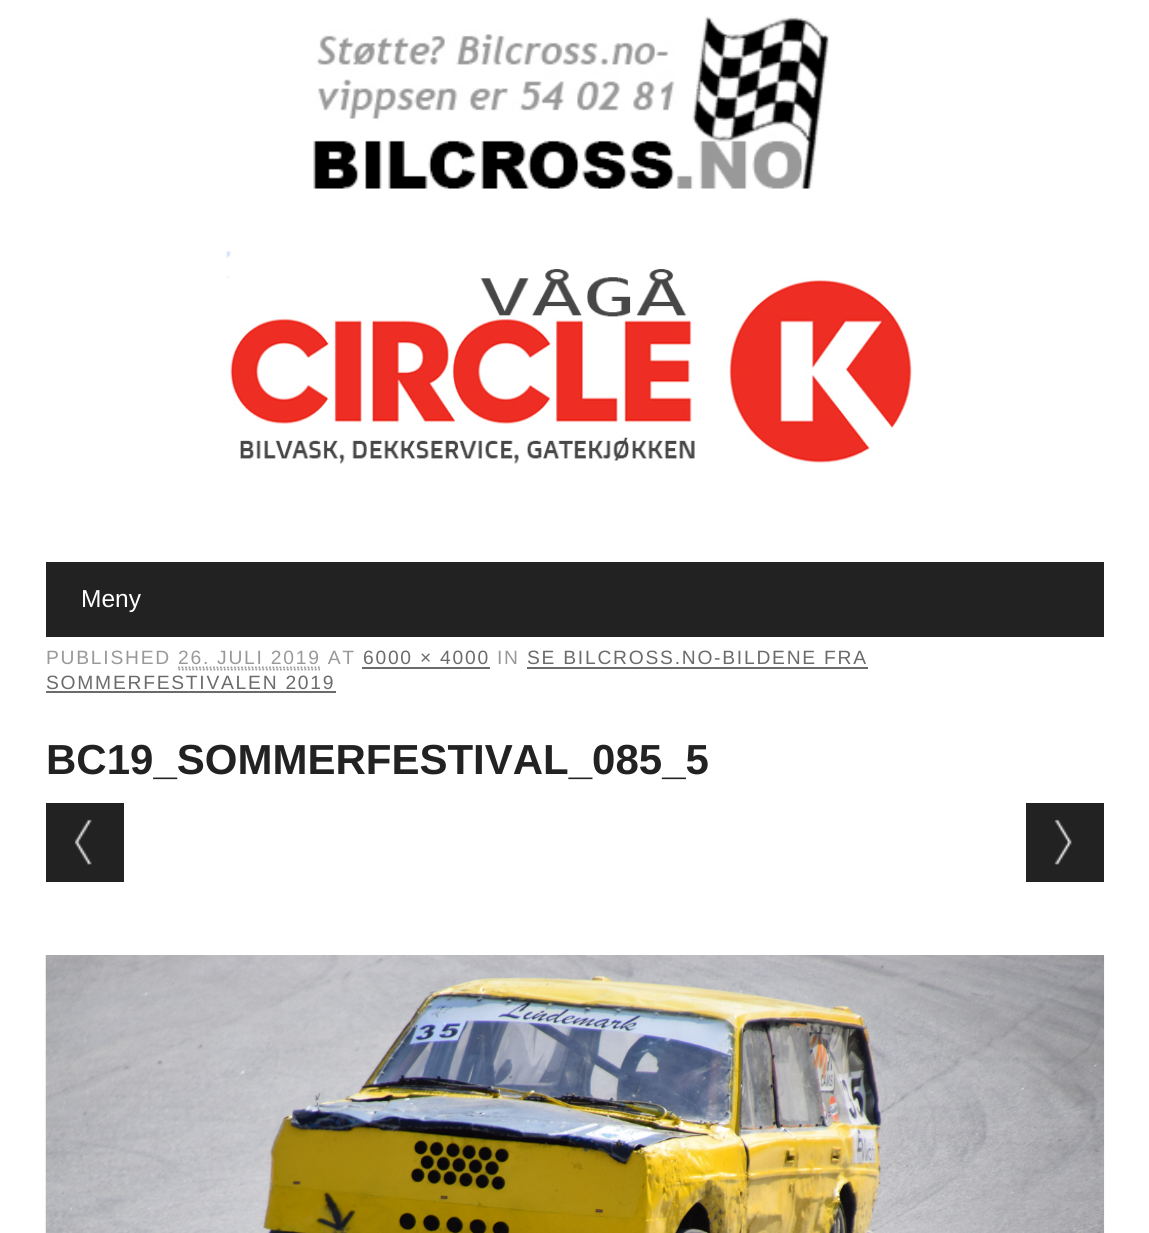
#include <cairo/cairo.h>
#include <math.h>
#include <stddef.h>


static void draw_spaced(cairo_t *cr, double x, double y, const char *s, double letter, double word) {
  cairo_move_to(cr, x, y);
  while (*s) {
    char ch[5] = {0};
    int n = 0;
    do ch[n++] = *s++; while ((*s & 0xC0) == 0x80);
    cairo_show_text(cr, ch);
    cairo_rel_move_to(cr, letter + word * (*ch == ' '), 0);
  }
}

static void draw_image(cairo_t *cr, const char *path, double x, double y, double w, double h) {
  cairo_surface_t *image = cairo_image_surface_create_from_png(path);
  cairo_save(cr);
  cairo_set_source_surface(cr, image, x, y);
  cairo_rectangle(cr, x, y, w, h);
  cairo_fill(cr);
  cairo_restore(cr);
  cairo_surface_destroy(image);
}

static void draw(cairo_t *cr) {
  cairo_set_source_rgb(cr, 1, 1, 1);
  cairo_paint(cr);
  draw_image(cr, "images/1.png", 313, 16, 517, 173);
  draw_image(cr, "images/2.png", 226, 251, 686, 213);
  cairo_set_source_rgb(cr, 34 / 255.0, 34 / 255.0, 34 / 255.0);
  cairo_rectangle(cr, 46, 562, 1058, 75);
  cairo_fill(cr);
  cairo_set_source_rgb(cr, 107 / 255.0, 107 / 255.0, 107 / 255.0);
  cairo_rectangle(cr, 362, 667, 128, 2);
  cairo_fill(cr);
  cairo_rectangle(cr, 527, 667, 341, 2);
  cairo_fill(cr);
  cairo_new_path(cr);
  cairo_move_to(cr, 178.5, 669.5);
  cairo_line_to(cr, 320, 669.5);
  cairo_set_source_rgb(cr, 153 / 255.0, 153 / 255.0, 153 / 255.0);
  cairo_set_line_width(cr, 1.8);
  cairo_set_dash(cr, (double[]){1.75, 1.75}, 2, 0);
  cairo_stroke(cr);
  cairo_new_path(cr);
  cairo_move_to(cr, 178, 667.5);
  cairo_line_to(cr, 320.5, 667.5);
  cairo_stroke(cr);
  cairo_set_source_rgb(cr, 107 / 255.0, 107 / 255.0, 107 / 255.0);
  cairo_rectangle(cr, 46, 691, 290, 2);
  cairo_fill(cr);
  cairo_set_source_rgb(cr, 34 / 255.0, 34 / 255.0, 34 / 255.0);
  cairo_rectangle(cr, 46, 803, 78, 79);
  cairo_fill(cr);
  draw_image(cr, "images/3.png", 74, 819, 18, 46);
  cairo_rectangle(cr, 1026, 803, 78, 79);
  cairo_fill(cr);
  draw_image(cr, "images/4.png", 1054, 819, 18, 46);
  draw_image(cr, "images/5.png", 45, 955, 1060, 278);
  cairo_select_font_face(cr, "Liberation Sans", CAIRO_FONT_SLANT_NORMAL, CAIRO_FONT_WEIGHT_NORMAL);
  cairo_set_font_size(cr, 24.5);
  cairo_set_source_rgb(cr, 1, 1, 1);
  cairo_move_to(cr, 81, 607);
  cairo_show_text(cr, "Meny");
  cairo_set_font_size(cr, 19.25);
  cairo_set_source_rgb(cr, 153 / 255.0, 153 / 255.0, 153 / 255.0);
  draw_spaced(cr, 46, 664, "PUBLISHED 26. JULI 2019 AT", 1.75, 0);
  cairo_set_source_rgb(cr, 107 / 255.0, 107 / 255.0, 107 / 255.0);
  draw_spaced(cr, 363, 664, "6000 × 4000", 1.75, 0);
  cairo_set_source_rgb(cr, 153 / 255.0, 153 / 255.0, 153 / 255.0);
  draw_spaced(cr, 497, 664, "IN", 1.75, 0);
  cairo_set_source_rgb(cr, 107 / 255.0, 107 / 255.0, 107 / 255.0);
  draw_spaced(cr, 527, 664, "SE BILCROSS.NO-BILDENE FRA", 1.75, 0);
  draw_spaced(cr, 46, 689, "SOMMERFESTIVALEN 2019", 1.75, 0);
  cairo_select_font_face(cr, "Liberation Sans", CAIRO_FONT_SLANT_NORMAL, CAIRO_FONT_WEIGHT_BOLD);
  cairo_set_font_size(cr, 42);
  cairo_set_source_rgb(cr, 34 / 255.0, 34 / 255.0, 34 / 255.0);
  cairo_move_to(cr, 46, 774);
  cairo_show_text(cr, "BC19_SOMMERFESTIVAL_085_5");
}

int main(void) {
  cairo_surface_t *surface = cairo_image_surface_create(CAIRO_FORMAT_RGB24, 1149, 1233);
  cairo_t *cr = cairo_create(surface);
  cairo_font_options_t *options = cairo_font_options_create();
  cairo_font_options_set_hint_metrics(options, CAIRO_HINT_METRICS_OFF);
  cairo_font_options_set_hint_style(options, CAIRO_HINT_STYLE_NONE);
  cairo_set_font_options(cr, options);
  cairo_set_miter_limit(cr, 4);
  draw(cr);
  cairo_surface_write_to_png(surface, "out.png");
  cairo_font_options_destroy(options);
  cairo_destroy(cr);
  cairo_surface_destroy(surface);
  return 0;
}
